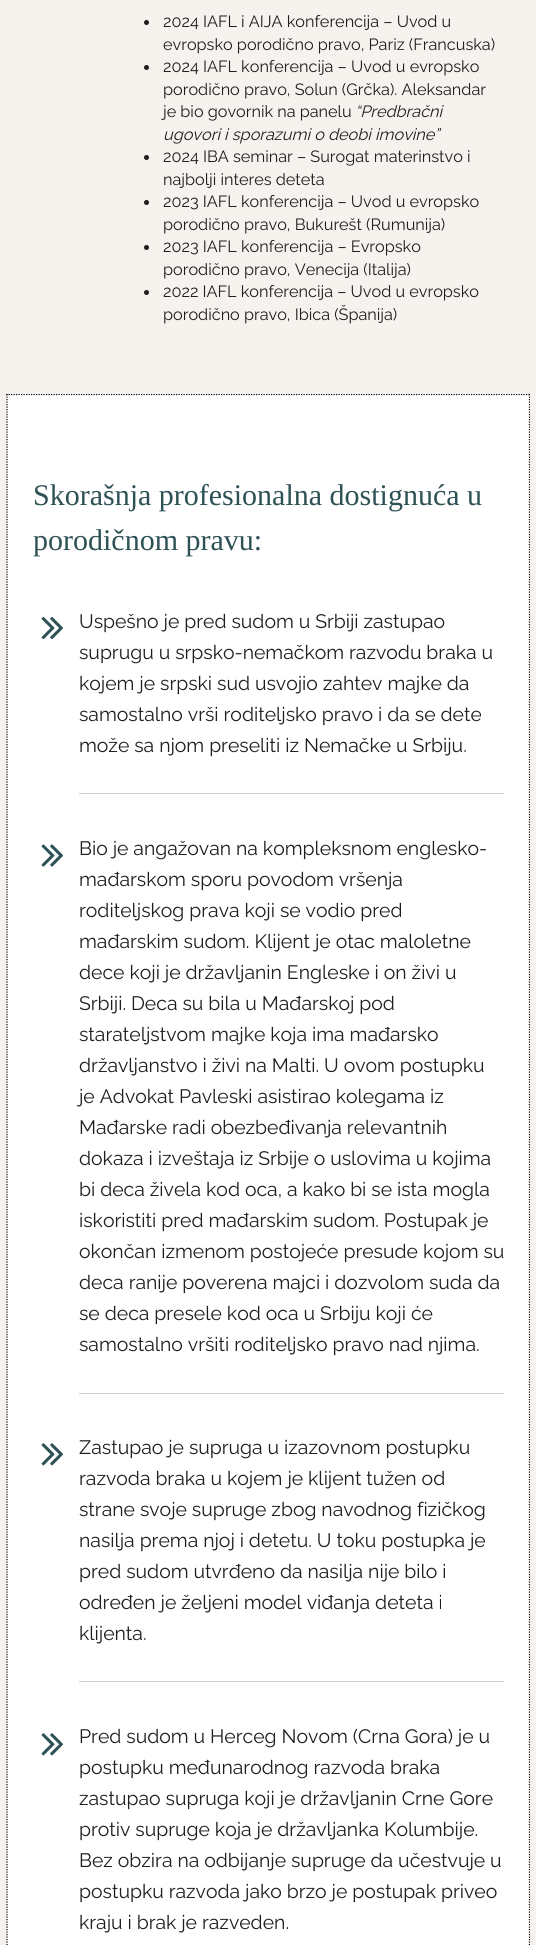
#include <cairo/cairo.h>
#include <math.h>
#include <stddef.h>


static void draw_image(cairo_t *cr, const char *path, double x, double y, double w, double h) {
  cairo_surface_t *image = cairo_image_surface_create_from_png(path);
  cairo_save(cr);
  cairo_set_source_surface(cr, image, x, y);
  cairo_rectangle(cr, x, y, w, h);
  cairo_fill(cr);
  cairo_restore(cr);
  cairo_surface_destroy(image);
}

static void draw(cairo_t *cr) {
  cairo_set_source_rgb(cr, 246 / 255.0, 243 / 255.0, 238 / 255.0);
  cairo_paint(cr);
  cairo_set_source_rgb(cr, 30 / 255.0, 30 / 255.0, 30 / 255.0);
  cairo_arc(cr, 146.5, 22.5, 2.5, 0, 2 * M_PI);
  cairo_fill(cr);
  cairo_arc(cr, 146.5, 67.5, 2.5, 0, 2 * M_PI);
  cairo_fill(cr);
  cairo_arc(cr, 146.5, 157.5, 2.5, 0, 2 * M_PI);
  cairo_fill(cr);
  cairo_arc(cr, 146.5, 202.5, 2.5, 0, 2 * M_PI);
  cairo_fill(cr);
  cairo_arc(cr, 146.5, 247.5, 2.5, 0, 2 * M_PI);
  cairo_fill(cr);
  cairo_arc(cr, 146.5, 292.5, 2.5, 0, 2 * M_PI);
  cairo_fill(cr);
  cairo_set_source_rgb(cr, 1, 1, 1);
  cairo_rectangle(cr, 6, 394, 524, 1551);
  cairo_fill(cr);
  cairo_save(cr);
  cairo_rectangle(cr, 6, 394, 524, 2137);
  cairo_clip(cr);
  cairo_new_path(cr);
  cairo_move_to(cr, 6, 394.5);
  cairo_line_to(cr, 530, 394.5);
  cairo_set_source_rgb(cr, 0, 0, 0);
  cairo_set_line_width(cr, 1.2);
  cairo_set_dash(cr, (double[]){1.25, 1.25}, 2, 0);
  cairo_stroke(cr);
  cairo_new_path(cr);
  cairo_move_to(cr, 529.5, 394);
  cairo_line_to(cr, 529.5, 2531);
  cairo_stroke(cr);
  cairo_restore(cr);
  cairo_new_path(cr);
  cairo_move_to(cr, 7, 394);
  cairo_line_to(cr, 7, 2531);
  cairo_set_source_rgb(cr, 0, 0, 0);
  cairo_set_line_width(cr, 1.2);
  cairo_set_dash(cr, (double[]){1.25, 1.25}, 2, 0);
  cairo_stroke(cr);
  draw_image(cr, "images/1.png", 41, 616, 22, 24);
  cairo_set_source_rgb(cr, 204 / 255.0, 204 / 255.0, 204 / 255.0);
  cairo_rectangle(cr, 79, 793, 425, 1);
  cairo_fill(cr);
  draw_image(cr, "images/2.png", 41, 844, 23, 23);
  cairo_rectangle(cr, 79, 1393, 425, 1);
  cairo_fill(cr);
  draw_image(cr, "images/3.png", 41, 1443, 23, 23);
  cairo_rectangle(cr, 79, 1681, 425, 1);
  cairo_fill(cr);
  draw_image(cr, "images/3.png", 41, 1733, 23, 23);
  cairo_select_font_face(cr, "Raleway", CAIRO_FONT_SLANT_NORMAL, CAIRO_FONT_WEIGHT_NORMAL);
  cairo_set_font_size(cr, 16.25);
  cairo_set_source_rgb(cr, 30 / 255.0, 30 / 255.0, 30 / 255.0);
  cairo_move_to(cr, 163, 27);
  cairo_show_text(cr, "2024 IAFL i AIJA konferencija – Uvod u");
  cairo_move_to(cr, 163, 50);
  cairo_show_text(cr, "evropsko porodično pravo, Pariz (Francuska)");
  cairo_move_to(cr, 163, 72);
  cairo_show_text(cr, "2024 IAFL konferencija – Uvod u evropsko");
  cairo_move_to(cr, 163, 95);
  cairo_show_text(cr, "porodično pravo, Solun (Grčka). Aleksandar");
  cairo_move_to(cr, 163, 117);
  cairo_show_text(cr, "je bio govornik na panelu");
  cairo_select_font_face(cr, "Raleway", CAIRO_FONT_SLANT_ITALIC, CAIRO_FONT_WEIGHT_NORMAL);
  cairo_move_to(cr, 355, 117);
  cairo_show_text(cr, "“Predbračni");
  cairo_move_to(cr, 163, 140);
  cairo_show_text(cr, "ugovori i sporazumi o deobi imovine”");
  cairo_select_font_face(cr, "Raleway", CAIRO_FONT_SLANT_NORMAL, CAIRO_FONT_WEIGHT_NORMAL);
  cairo_move_to(cr, 163, 162);
  cairo_show_text(cr, "2024 IBA seminar – Surogat materinstvo i");
  cairo_move_to(cr, 163, 185);
  cairo_show_text(cr, "najbolji interes deteta");
  cairo_move_to(cr, 163, 207);
  cairo_show_text(cr, "2023 IAFL konferencija – Uvod u evropsko");
  cairo_move_to(cr, 163, 230);
  cairo_show_text(cr, "porodično pravo, Bukurešt (Rumunija)");
  cairo_move_to(cr, 163, 252);
  cairo_show_text(cr, "2023 IAFL konferencija – Evropsko");
  cairo_move_to(cr, 163, 275);
  cairo_show_text(cr, "porodično pravo, Venecija (Italija)");
  cairo_move_to(cr, 163, 297);
  cairo_show_text(cr, "2022 IAFL konferencija – Uvod u evropsko");
  cairo_move_to(cr, 163, 320);
  cairo_show_text(cr, "porodično pravo, Ibica (Španija)");
  cairo_select_font_face(cr, "Liberation Serif", CAIRO_FONT_SLANT_NORMAL, CAIRO_FONT_WEIGHT_NORMAL);
  cairo_set_font_size(cr, 30);
  cairo_set_source_rgb(cr, 46 / 255.0, 81 / 255.0, 85 / 255.0);
  cairo_move_to(cr, 33, 505);
  cairo_show_text(cr, "Skorašnja profesionalna dostignuća u");
  cairo_move_to(cr, 33, 550);
  cairo_show_text(cr, "porodičnom pravu:");
  cairo_select_font_face(cr, "Raleway", CAIRO_FONT_SLANT_NORMAL, CAIRO_FONT_WEIGHT_NORMAL);
  cairo_set_font_size(cr, 19.4);
  cairo_set_source_rgb(cr, 30 / 255.0, 30 / 255.0, 30 / 255.0);
  cairo_move_to(cr, 79, 628);
  cairo_show_text(cr, "Uspešno je pred sudom u Srbiji zastupao");
  cairo_move_to(cr, 79, 659);
  cairo_show_text(cr, "suprugu u srpsko-nemačkom razvodu braka u");
  cairo_move_to(cr, 79, 690);
  cairo_show_text(cr, "kojem je srpski sud usvojio zahtev majke da");
  cairo_move_to(cr, 79, 721);
  cairo_show_text(cr, "samostalno vrši roditeljsko pravo i da se dete");
  cairo_move_to(cr, 79, 752);
  cairo_show_text(cr, "može sa njom preseliti iz Nemačke u Srbiju.");
  cairo_move_to(cr, 79, 855);
  cairo_show_text(cr, "Bio je angažovan na kompleksnom englesko-");
  cairo_move_to(cr, 79, 886);
  cairo_show_text(cr, "mađarskom sporu povodom vršenja");
  cairo_move_to(cr, 79, 917);
  cairo_show_text(cr, "roditeljskog prava koji se vodio pred");
  cairo_move_to(cr, 79, 948);
  cairo_show_text(cr, "mađarskim sudom. Klijent je otac maloletne");
  cairo_move_to(cr, 79, 979);
  cairo_show_text(cr, "dece koji je državljanin Engleske i on živi u");
  cairo_move_to(cr, 79, 1010);
  cairo_show_text(cr, "Srbiji. Deca su bila u Mađarskoj pod");
  cairo_move_to(cr, 79, 1041);
  cairo_show_text(cr, "starateljstvom majke koja ima mađarsko");
  cairo_move_to(cr, 79, 1072);
  cairo_show_text(cr, "državljanstvo i živi na Malti. U ovom postupku");
  cairo_move_to(cr, 79, 1103);
  cairo_show_text(cr, "je Advokat Pavleski asistirao kolegama iz");
  cairo_move_to(cr, 79, 1134);
  cairo_show_text(cr, "Mađarske radi obezbeđivanja relevantnih");
  cairo_move_to(cr, 79, 1165);
  cairo_show_text(cr, "dokaza i izveštaja iz Srbije o uslovima u kojima");
  cairo_move_to(cr, 79, 1196);
  cairo_show_text(cr, "bi deca živela kod oca, a kako bi se ista mogla");
  cairo_move_to(cr, 79, 1227);
  cairo_show_text(cr, "iskoristiti pred mađarskim sudom. Postupak je");
  cairo_move_to(cr, 79, 1258);
  cairo_show_text(cr, "okončan izmenom postojeće presude kojom su");
  cairo_move_to(cr, 79, 1289);
  cairo_show_text(cr, "deca ranije poverena majci i dozvolom suda da");
  cairo_move_to(cr, 79, 1320);
  cairo_show_text(cr, "se deca presele kod oca u Srbiju koji će");
  cairo_move_to(cr, 79, 1351);
  cairo_show_text(cr, "samostalno vršiti roditeljsko pravo nad njima.");
  cairo_move_to(cr, 79, 1454);
  cairo_show_text(cr, "Zastupao je supruga u izazovnom postupku");
  cairo_move_to(cr, 79, 1485);
  cairo_show_text(cr, "razvoda braka u kojem je klijent tužen od");
  cairo_move_to(cr, 79, 1516);
  cairo_show_text(cr, "strane svoje supruge zbog navodnog fizičkog");
  cairo_move_to(cr, 79, 1547);
  cairo_show_text(cr, "nasilja prema njoj i detetu. U toku postupka je");
  cairo_move_to(cr, 79, 1578);
  cairo_show_text(cr, "pred sudom utvrđeno da nasilja nije bilo i");
  cairo_move_to(cr, 79, 1609);
  cairo_show_text(cr, "određen je željeni model viđanja deteta i");
  cairo_move_to(cr, 79, 1640);
  cairo_show_text(cr, "klijenta.");
  cairo_move_to(cr, 79, 1743);
  cairo_show_text(cr, "Pred sudom u Herceg Novom (Crna Gora) je u");
  cairo_move_to(cr, 79, 1774);
  cairo_show_text(cr, "postupku međunarodnog razvoda braka");
  cairo_move_to(cr, 79, 1805);
  cairo_show_text(cr, "zastupao supruga koji je državljanin Crne Gore");
  cairo_move_to(cr, 79, 1836);
  cairo_show_text(cr, "protiv supruge koja je državljanka Kolumbije.");
  cairo_move_to(cr, 79, 1867);
  cairo_show_text(cr, "Bez obzira na odbijanje supruge da učestvuje u");
  cairo_move_to(cr, 79, 1898);
  cairo_show_text(cr, "postupku razvoda jako brzo je postupak priveo");
  cairo_move_to(cr, 79, 1929);
  cairo_show_text(cr, "kraju i brak je razveden.");
}

int main(void) {
  cairo_surface_t *surface = cairo_image_surface_create(CAIRO_FORMAT_RGB24, 536, 1945);
  cairo_t *cr = cairo_create(surface);
  cairo_font_options_t *options = cairo_font_options_create();
  cairo_font_options_set_hint_metrics(options, CAIRO_HINT_METRICS_OFF);
  cairo_font_options_set_hint_style(options, CAIRO_HINT_STYLE_NONE);
  cairo_set_font_options(cr, options);
  cairo_set_miter_limit(cr, 4);
  draw(cr);
  cairo_surface_write_to_png(surface, "out.png");
  cairo_font_options_destroy(options);
  cairo_destroy(cr);
  cairo_surface_destroy(surface);
  return 0;
}
